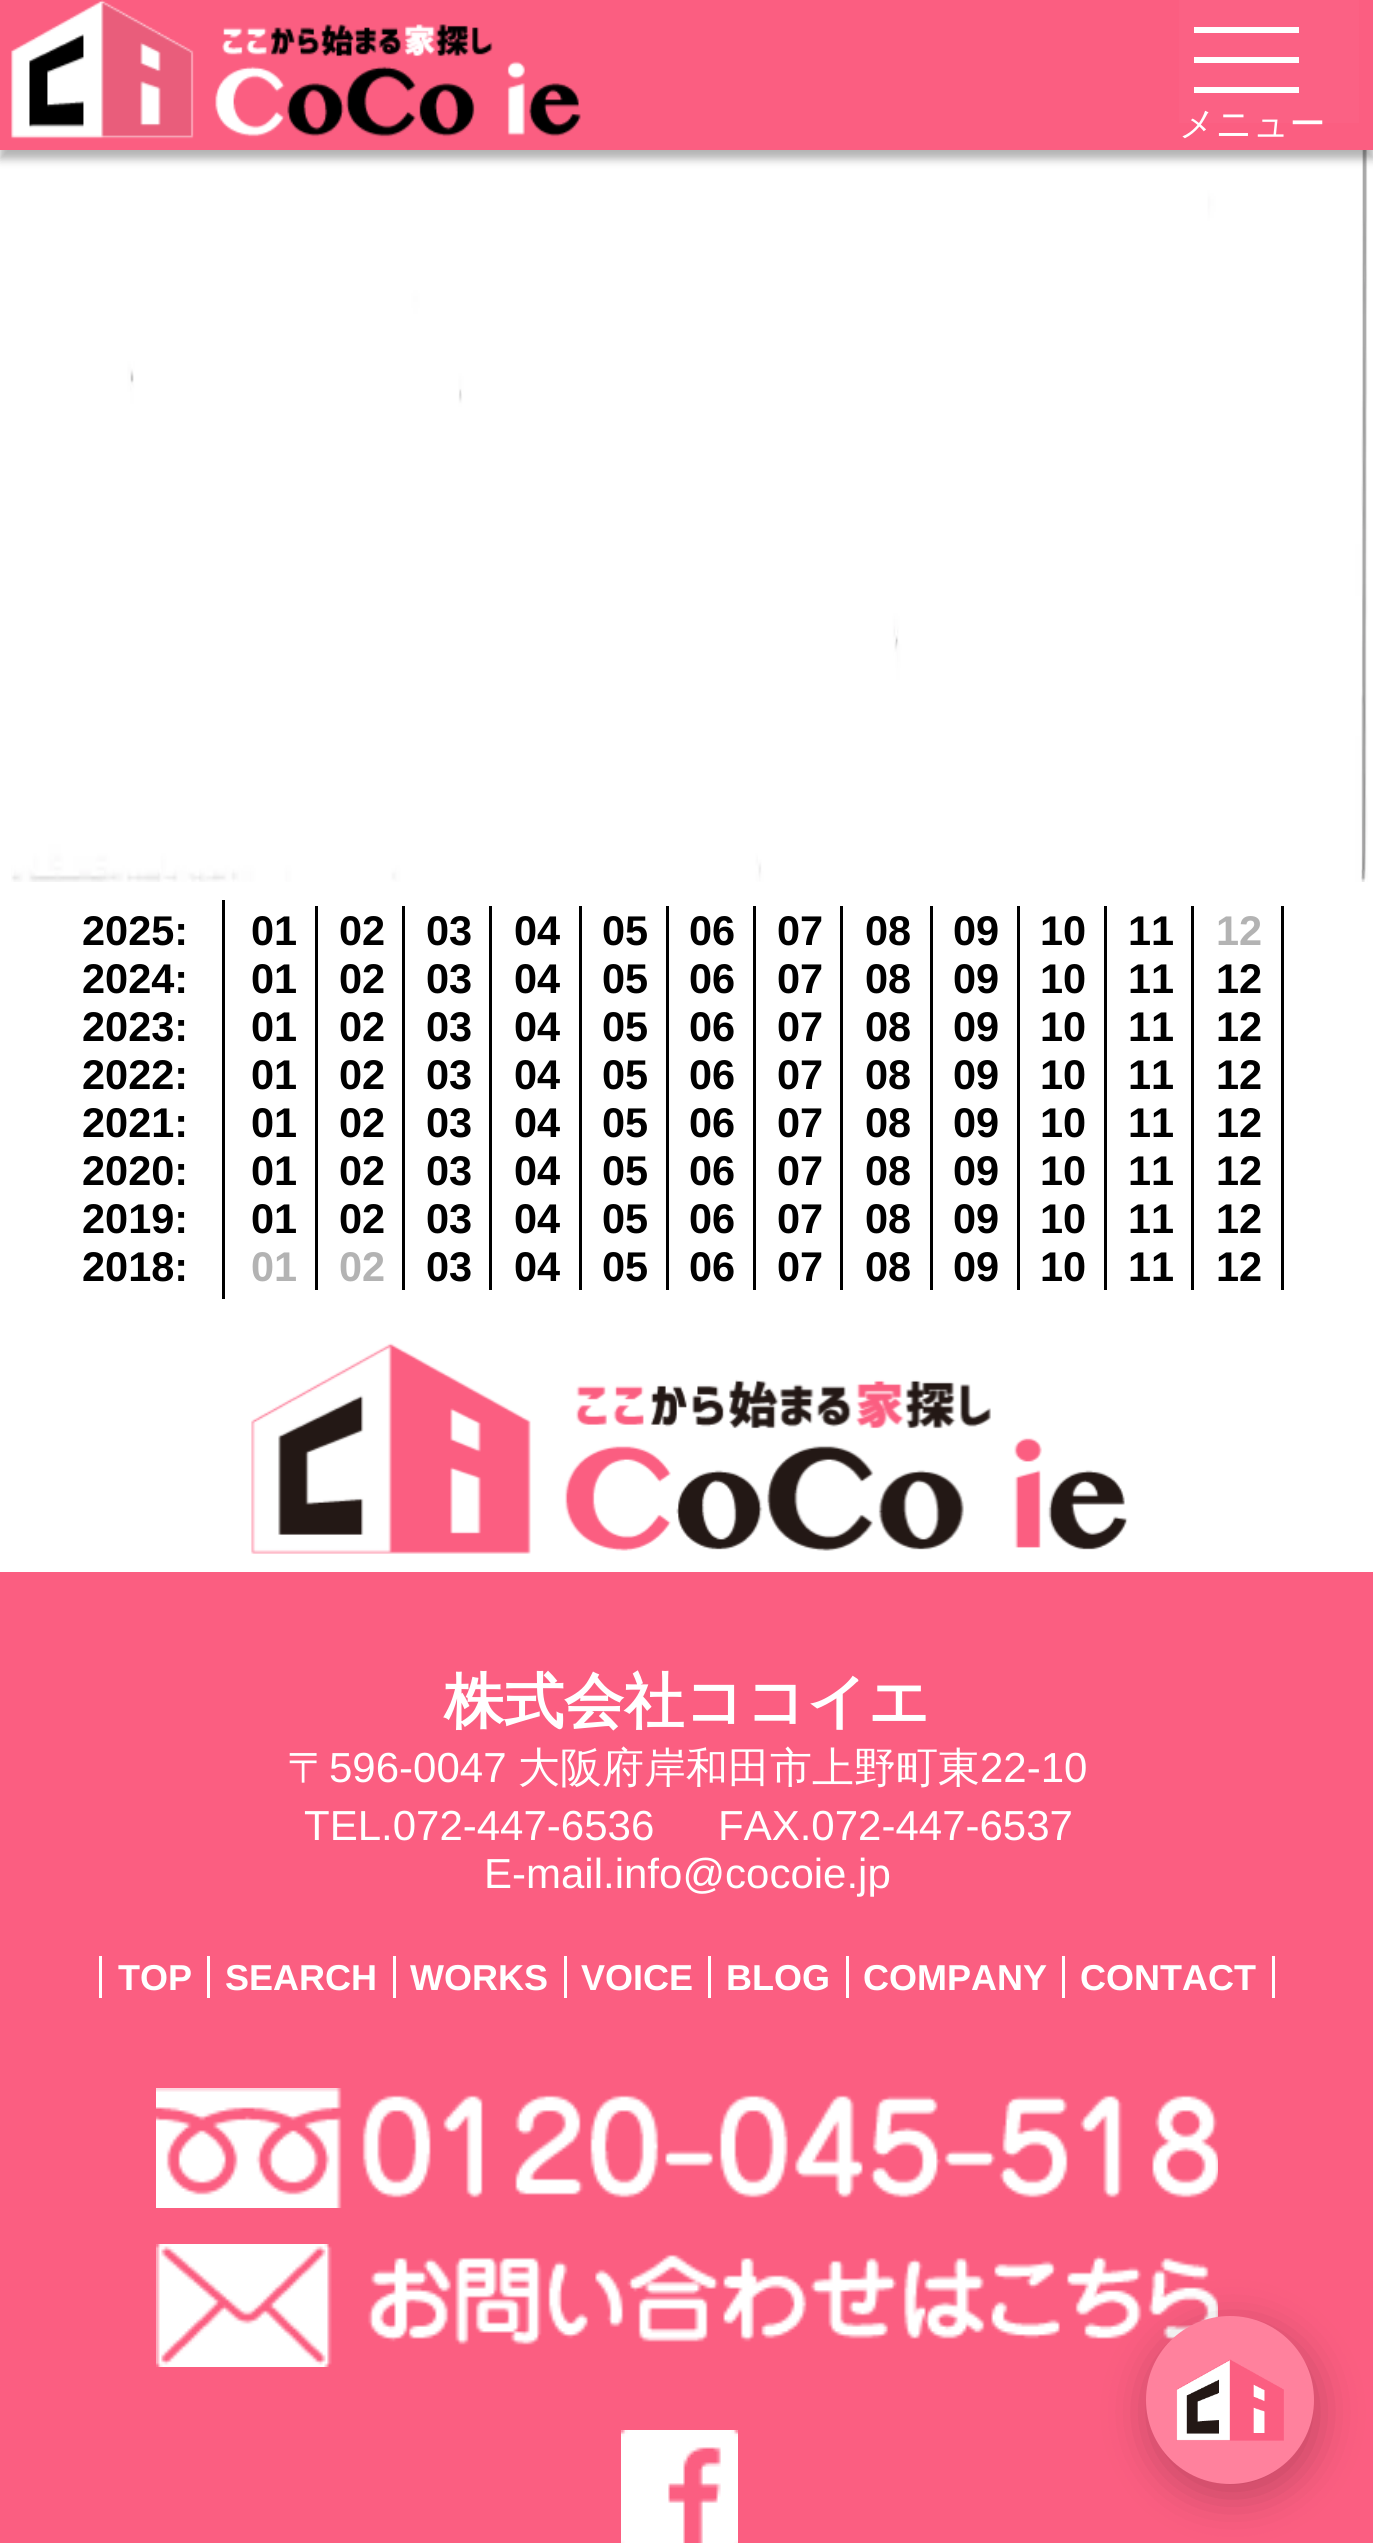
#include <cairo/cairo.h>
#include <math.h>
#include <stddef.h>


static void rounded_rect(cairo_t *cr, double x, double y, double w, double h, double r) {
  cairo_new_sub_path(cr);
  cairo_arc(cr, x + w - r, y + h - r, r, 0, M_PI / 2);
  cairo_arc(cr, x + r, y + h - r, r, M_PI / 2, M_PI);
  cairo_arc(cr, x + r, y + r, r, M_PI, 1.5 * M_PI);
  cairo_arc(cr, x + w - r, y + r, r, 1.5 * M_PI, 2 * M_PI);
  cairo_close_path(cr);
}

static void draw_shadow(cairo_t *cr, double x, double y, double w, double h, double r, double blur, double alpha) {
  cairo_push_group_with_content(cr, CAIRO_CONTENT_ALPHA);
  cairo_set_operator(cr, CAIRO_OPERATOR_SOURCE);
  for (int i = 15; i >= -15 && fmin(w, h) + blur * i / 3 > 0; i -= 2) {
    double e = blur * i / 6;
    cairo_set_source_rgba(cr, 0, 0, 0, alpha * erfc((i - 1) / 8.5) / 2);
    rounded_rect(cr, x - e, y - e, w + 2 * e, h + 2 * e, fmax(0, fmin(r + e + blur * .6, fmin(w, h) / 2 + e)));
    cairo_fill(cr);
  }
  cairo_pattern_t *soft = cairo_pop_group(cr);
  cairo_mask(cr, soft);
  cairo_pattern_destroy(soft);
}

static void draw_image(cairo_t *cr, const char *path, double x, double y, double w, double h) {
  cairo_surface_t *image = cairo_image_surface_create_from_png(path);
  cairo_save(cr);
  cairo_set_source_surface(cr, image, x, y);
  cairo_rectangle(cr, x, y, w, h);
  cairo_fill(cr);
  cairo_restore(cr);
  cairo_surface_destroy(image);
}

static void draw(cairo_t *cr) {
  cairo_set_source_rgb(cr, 1, 1, 1);
  cairo_paint(cr);
  draw_image(cr, "images/2.png", 11, 150, 1357, 732);
  cairo_set_source_rgb(cr, 0, 0, 0);
  draw_shadow(cr, 0, 9, 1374, 150, 0, 4.5, 0.3);
  cairo_set_source_rgb(cr, 251 / 255.0, 94 / 255.0, 129 / 255.0);
  cairo_rectangle(cr, 0, 0, 1373, 150);
  cairo_fill(cr);
  draw_image(cr, "images/1.png", 11, 0, 570, 139);
  cairo_set_source_rgb(cr, 251 / 255.0, 97 / 255.0, 132 / 255.0);
  cairo_rectangle(cr, 1179, 0, 180, 123);
  cairo_fill(cr);
  cairo_set_source_rgb(cr, 1, 1, 1);
  cairo_rectangle(cr, 1194, 27, 105, 6);
  cairo_fill(cr);
  cairo_rectangle(cr, 1194, 57, 105, 6);
  cairo_fill(cr);
  cairo_rectangle(cr, 1194, 87, 105, 6);
  cairo_fill(cr);
  cairo_set_source_rgb(cr, 0, 0, 0);
  cairo_rectangle(cr, 222, 900, 3, 399);
  cairo_fill(cr);
  cairo_rectangle(cr, 315, 906, 3, 384);
  cairo_fill(cr);
  cairo_rectangle(cr, 402, 906, 3, 384);
  cairo_fill(cr);
  cairo_rectangle(cr, 489, 906, 3, 384);
  cairo_fill(cr);
  cairo_rectangle(cr, 579, 906, 3, 384);
  cairo_fill(cr);
  cairo_rectangle(cr, 666, 906, 3, 384);
  cairo_fill(cr);
  cairo_rectangle(cr, 753, 906, 3, 384);
  cairo_fill(cr);
  cairo_rectangle(cr, 840, 906, 3, 384);
  cairo_fill(cr);
  cairo_rectangle(cr, 930, 906, 3, 384);
  cairo_fill(cr);
  cairo_rectangle(cr, 1017, 906, 3, 384);
  cairo_fill(cr);
  cairo_rectangle(cr, 1104, 906, 3, 384);
  cairo_fill(cr);
  cairo_rectangle(cr, 1191, 906, 3, 384);
  cairo_fill(cr);
  cairo_rectangle(cr, 1281, 906, 3, 384);
  cairo_fill(cr);
  draw_image(cr, "images/3.png", 251, 1343, 877, 211);
  cairo_set_source_rgb(cr, 251 / 255.0, 94 / 255.0, 129 / 255.0);
  cairo_rectangle(cr, 0, 1572, 1373, 971);
  cairo_fill(cr);
  cairo_set_source_rgb(cr, 1, 1, 1);
  cairo_rectangle(cr, 207, 1956, 3, 42);
  cairo_fill(cr);
  cairo_rectangle(cr, 99, 1956, 3, 42);
  cairo_fill(cr);
  cairo_rectangle(cr, 393, 1956, 3, 42);
  cairo_fill(cr);
  cairo_rectangle(cr, 564, 1956, 3, 42);
  cairo_fill(cr);
  cairo_rectangle(cr, 708, 1956, 3, 42);
  cairo_fill(cr);
  cairo_rectangle(cr, 846, 1956, 3, 42);
  cairo_fill(cr);
  cairo_rectangle(cr, 1062, 1956, 3, 42);
  cairo_fill(cr);
  cairo_rectangle(cr, 1272, 1956, 3, 42);
  cairo_fill(cr);
  draw_image(cr, "images/4.png", 156, 2088, 1062, 120);
  draw_image(cr, "images/5.png", 156, 2244, 1062, 123);
  draw_image(cr, "images/6.png", 621, 2430, 117, 113);
  cairo_set_source_rgb(cr, 0, 0, 0);
  draw_shadow(cr, 1149, 2328, 168, 168, 84, 22.5, 0.24);
  cairo_set_source_rgb(cr, 1, 129 / 255.0, 157 / 255.0);
  cairo_arc(cr, 1230, 2400, 84, 0, 2 * M_PI);
  cairo_fill(cr);
  draw_image(cr, "images/7.png", 1176, 2359, 108, 82);
  cairo_select_font_face(cr, "WenQuanYi Zen Hei Medium", CAIRO_FONT_SLANT_NORMAL, CAIRO_FONT_WEIGHT_NORMAL);
  cairo_set_font_size(cr, 36);
  cairo_set_source_rgb(cr, 1, 1, 1);
  cairo_move_to(cr, 1179, 136);
  cairo_show_text(cr, "メニュー");
  cairo_select_font_face(cr, "Liberation Sans", CAIRO_FONT_SLANT_NORMAL, CAIRO_FONT_WEIGHT_BOLD);
  cairo_set_font_size(cr, 41.5);
  cairo_set_source_rgb(cr, 0, 0, 0);
  cairo_move_to(cr, 82, 945);
  cairo_show_text(cr, "2025:");
  cairo_move_to(cr, 251, 945);
  cairo_show_text(cr, "01");
  cairo_move_to(cr, 339, 945);
  cairo_show_text(cr, "02");
  cairo_move_to(cr, 426, 945);
  cairo_show_text(cr, "03");
  cairo_move_to(cr, 514, 945);
  cairo_show_text(cr, "04");
  cairo_move_to(cr, 602, 945);
  cairo_show_text(cr, "05");
  cairo_move_to(cr, 689, 945);
  cairo_show_text(cr, "06");
  cairo_move_to(cr, 777, 945);
  cairo_show_text(cr, "07");
  cairo_move_to(cr, 865, 945);
  cairo_show_text(cr, "08");
  cairo_move_to(cr, 953, 945);
  cairo_show_text(cr, "09");
  cairo_move_to(cr, 1040, 945);
  cairo_show_text(cr, "10");
  cairo_move_to(cr, 1128, 945);
  cairo_show_text(cr, "11");
  cairo_set_source_rgb(cr, 179 / 255.0, 179 / 255.0, 179 / 255.0);
  cairo_move_to(cr, 1216, 945);
  cairo_show_text(cr, "12");
  cairo_set_source_rgb(cr, 0, 0, 0);
  cairo_move_to(cr, 82, 993);
  cairo_show_text(cr, "2024:");
  cairo_move_to(cr, 251, 993);
  cairo_show_text(cr, "01");
  cairo_move_to(cr, 339, 993);
  cairo_show_text(cr, "02");
  cairo_move_to(cr, 426, 993);
  cairo_show_text(cr, "03");
  cairo_move_to(cr, 514, 993);
  cairo_show_text(cr, "04");
  cairo_move_to(cr, 602, 993);
  cairo_show_text(cr, "05");
  cairo_move_to(cr, 689, 993);
  cairo_show_text(cr, "06");
  cairo_move_to(cr, 777, 993);
  cairo_show_text(cr, "07");
  cairo_move_to(cr, 865, 993);
  cairo_show_text(cr, "08");
  cairo_move_to(cr, 953, 993);
  cairo_show_text(cr, "09");
  cairo_move_to(cr, 1040, 993);
  cairo_show_text(cr, "10");
  cairo_move_to(cr, 1128, 993);
  cairo_show_text(cr, "11");
  cairo_move_to(cr, 1216, 993);
  cairo_show_text(cr, "12");
  cairo_move_to(cr, 82, 1041);
  cairo_show_text(cr, "2023:");
  cairo_move_to(cr, 251, 1041);
  cairo_show_text(cr, "01");
  cairo_move_to(cr, 339, 1041);
  cairo_show_text(cr, "02");
  cairo_move_to(cr, 426, 1041);
  cairo_show_text(cr, "03");
  cairo_move_to(cr, 514, 1041);
  cairo_show_text(cr, "04");
  cairo_move_to(cr, 602, 1041);
  cairo_show_text(cr, "05");
  cairo_move_to(cr, 689, 1041);
  cairo_show_text(cr, "06");
  cairo_move_to(cr, 777, 1041);
  cairo_show_text(cr, "07");
  cairo_move_to(cr, 865, 1041);
  cairo_show_text(cr, "08");
  cairo_move_to(cr, 953, 1041);
  cairo_show_text(cr, "09");
  cairo_move_to(cr, 1040, 1041);
  cairo_show_text(cr, "10");
  cairo_move_to(cr, 1128, 1041);
  cairo_show_text(cr, "11");
  cairo_move_to(cr, 1216, 1041);
  cairo_show_text(cr, "12");
  cairo_move_to(cr, 82, 1089);
  cairo_show_text(cr, "2022:");
  cairo_move_to(cr, 251, 1089);
  cairo_show_text(cr, "01");
  cairo_move_to(cr, 339, 1089);
  cairo_show_text(cr, "02");
  cairo_move_to(cr, 426, 1089);
  cairo_show_text(cr, "03");
  cairo_move_to(cr, 514, 1089);
  cairo_show_text(cr, "04");
  cairo_move_to(cr, 602, 1089);
  cairo_show_text(cr, "05");
  cairo_move_to(cr, 689, 1089);
  cairo_show_text(cr, "06");
  cairo_move_to(cr, 777, 1089);
  cairo_show_text(cr, "07");
  cairo_move_to(cr, 865, 1089);
  cairo_show_text(cr, "08");
  cairo_move_to(cr, 953, 1089);
  cairo_show_text(cr, "09");
  cairo_move_to(cr, 1040, 1089);
  cairo_show_text(cr, "10");
  cairo_move_to(cr, 1128, 1089);
  cairo_show_text(cr, "11");
  cairo_move_to(cr, 1216, 1089);
  cairo_show_text(cr, "12");
  cairo_move_to(cr, 82, 1137);
  cairo_show_text(cr, "2021:");
  cairo_move_to(cr, 251, 1137);
  cairo_show_text(cr, "01");
  cairo_move_to(cr, 339, 1137);
  cairo_show_text(cr, "02");
  cairo_move_to(cr, 426, 1137);
  cairo_show_text(cr, "03");
  cairo_move_to(cr, 514, 1137);
  cairo_show_text(cr, "04");
  cairo_move_to(cr, 602, 1137);
  cairo_show_text(cr, "05");
  cairo_move_to(cr, 689, 1137);
  cairo_show_text(cr, "06");
  cairo_move_to(cr, 777, 1137);
  cairo_show_text(cr, "07");
  cairo_move_to(cr, 865, 1137);
  cairo_show_text(cr, "08");
  cairo_move_to(cr, 953, 1137);
  cairo_show_text(cr, "09");
  cairo_move_to(cr, 1040, 1137);
  cairo_show_text(cr, "10");
  cairo_move_to(cr, 1128, 1137);
  cairo_show_text(cr, "11");
  cairo_move_to(cr, 1216, 1137);
  cairo_show_text(cr, "12");
  cairo_move_to(cr, 82, 1185);
  cairo_show_text(cr, "2020:");
  cairo_move_to(cr, 251, 1185);
  cairo_show_text(cr, "01");
  cairo_move_to(cr, 339, 1185);
  cairo_show_text(cr, "02");
  cairo_move_to(cr, 426, 1185);
  cairo_show_text(cr, "03");
  cairo_move_to(cr, 514, 1185);
  cairo_show_text(cr, "04");
  cairo_move_to(cr, 602, 1185);
  cairo_show_text(cr, "05");
  cairo_move_to(cr, 689, 1185);
  cairo_show_text(cr, "06");
  cairo_move_to(cr, 777, 1185);
  cairo_show_text(cr, "07");
  cairo_move_to(cr, 865, 1185);
  cairo_show_text(cr, "08");
  cairo_move_to(cr, 953, 1185);
  cairo_show_text(cr, "09");
  cairo_move_to(cr, 1040, 1185);
  cairo_show_text(cr, "10");
  cairo_move_to(cr, 1128, 1185);
  cairo_show_text(cr, "11");
  cairo_move_to(cr, 1216, 1185);
  cairo_show_text(cr, "12");
  cairo_move_to(cr, 82, 1233);
  cairo_show_text(cr, "2019:");
  cairo_move_to(cr, 251, 1233);
  cairo_show_text(cr, "01");
  cairo_move_to(cr, 339, 1233);
  cairo_show_text(cr, "02");
  cairo_move_to(cr, 426, 1233);
  cairo_show_text(cr, "03");
  cairo_move_to(cr, 514, 1233);
  cairo_show_text(cr, "04");
  cairo_move_to(cr, 602, 1233);
  cairo_show_text(cr, "05");
  cairo_move_to(cr, 689, 1233);
  cairo_show_text(cr, "06");
  cairo_move_to(cr, 777, 1233);
  cairo_show_text(cr, "07");
  cairo_move_to(cr, 865, 1233);
  cairo_show_text(cr, "08");
  cairo_move_to(cr, 953, 1233);
  cairo_show_text(cr, "09");
  cairo_move_to(cr, 1040, 1233);
  cairo_show_text(cr, "10");
  cairo_move_to(cr, 1128, 1233);
  cairo_show_text(cr, "11");
  cairo_move_to(cr, 1216, 1233);
  cairo_show_text(cr, "12");
  cairo_move_to(cr, 82, 1281);
  cairo_show_text(cr, "2018:");
  cairo_set_source_rgb(cr, 179 / 255.0, 179 / 255.0, 179 / 255.0);
  cairo_move_to(cr, 251, 1281);
  cairo_show_text(cr, "01");
  cairo_move_to(cr, 339, 1281);
  cairo_show_text(cr, "02");
  cairo_set_source_rgb(cr, 0, 0, 0);
  cairo_move_to(cr, 426, 1281);
  cairo_show_text(cr, "03");
  cairo_move_to(cr, 514, 1281);
  cairo_show_text(cr, "04");
  cairo_move_to(cr, 602, 1281);
  cairo_show_text(cr, "05");
  cairo_move_to(cr, 689, 1281);
  cairo_show_text(cr, "06");
  cairo_move_to(cr, 777, 1281);
  cairo_show_text(cr, "07");
  cairo_move_to(cr, 865, 1281);
  cairo_show_text(cr, "08");
  cairo_move_to(cr, 953, 1281);
  cairo_show_text(cr, "09");
  cairo_move_to(cr, 1040, 1281);
  cairo_show_text(cr, "10");
  cairo_move_to(cr, 1128, 1281);
  cairo_show_text(cr, "11");
  cairo_move_to(cr, 1216, 1281);
  cairo_show_text(cr, "12");
  cairo_select_font_face(cr, "WenQuanYi Zen Hei", CAIRO_FONT_SLANT_NORMAL, CAIRO_FONT_WEIGHT_BOLD);
  cairo_set_font_size(cr, 60);
  cairo_set_source_rgb(cr, 1, 1, 1);
  cairo_move_to(cr, 444, 1722);
  cairo_show_text(cr, "株式会社ココイエ");
  cairo_select_font_face(cr, "WenQuanYi Zen Hei Medium", CAIRO_FONT_SLANT_NORMAL, CAIRO_FONT_WEIGHT_NORMAL);
  cairo_set_font_size(cr, 42);
  cairo_move_to(cr, 287, 1782);
  cairo_show_text(cr, "〒");
  cairo_select_font_face(cr, "Liberation Sans", CAIRO_FONT_SLANT_NORMAL, CAIRO_FONT_WEIGHT_NORMAL);
  cairo_move_to(cr, 329, 1782);
  cairo_show_text(cr, "596-0047");
  cairo_select_font_face(cr, "WenQuanYi Zen Hei Medium", CAIRO_FONT_SLANT_NORMAL, CAIRO_FONT_WEIGHT_NORMAL);
  cairo_move_to(cr, 518, 1782);
  cairo_show_text(cr, "大阪府岸和田市上野町東");
  cairo_select_font_face(cr, "Liberation Sans", CAIRO_FONT_SLANT_NORMAL, CAIRO_FONT_WEIGHT_NORMAL);
  cairo_move_to(cr, 980, 1782);
  cairo_show_text(cr, "22-10");
  cairo_move_to(cr, 304, 1840);
  cairo_show_text(cr, "TEL.072-447-6536");
  cairo_move_to(cr, 718, 1840);
  cairo_show_text(cr, "FAX.072-447-6537");
  cairo_move_to(cr, 484, 1888);
  cairo_show_text(cr, "E-mail.info@cocoie.jp");
  cairo_select_font_face(cr, "Liberation Sans", CAIRO_FONT_SLANT_NORMAL, CAIRO_FONT_WEIGHT_BOLD);
  cairo_set_font_size(cr, 36);
  cairo_move_to(cr, 118, 1990);
  cairo_show_text(cr, "TOP");
  cairo_move_to(cr, 225, 1990);
  cairo_show_text(cr, "SEARCH");
  cairo_move_to(cr, 410, 1990);
  cairo_show_text(cr, "WORKS");
  cairo_move_to(cr, 581, 1990);
  cairo_show_text(cr, "VOICE");
  cairo_move_to(cr, 726, 1990);
  cairo_show_text(cr, "BLOG");
  cairo_move_to(cr, 863, 1990);
  cairo_show_text(cr, "COMPANY");
  cairo_move_to(cr, 1080, 1990);
  cairo_show_text(cr, "CONTACT");
}

int main(void) {
  cairo_surface_t *surface = cairo_image_surface_create(CAIRO_FORMAT_RGB24, 1373, 2543);
  cairo_t *cr = cairo_create(surface);
  cairo_font_options_t *options = cairo_font_options_create();
  cairo_font_options_set_hint_metrics(options, CAIRO_HINT_METRICS_OFF);
  cairo_font_options_set_hint_style(options, CAIRO_HINT_STYLE_NONE);
  cairo_set_font_options(cr, options);
  cairo_set_miter_limit(cr, 4);
  draw(cr);
  cairo_surface_write_to_png(surface, "out.png");
  cairo_font_options_destroy(options);
  cairo_destroy(cr);
  cairo_surface_destroy(surface);
  return 0;
}
